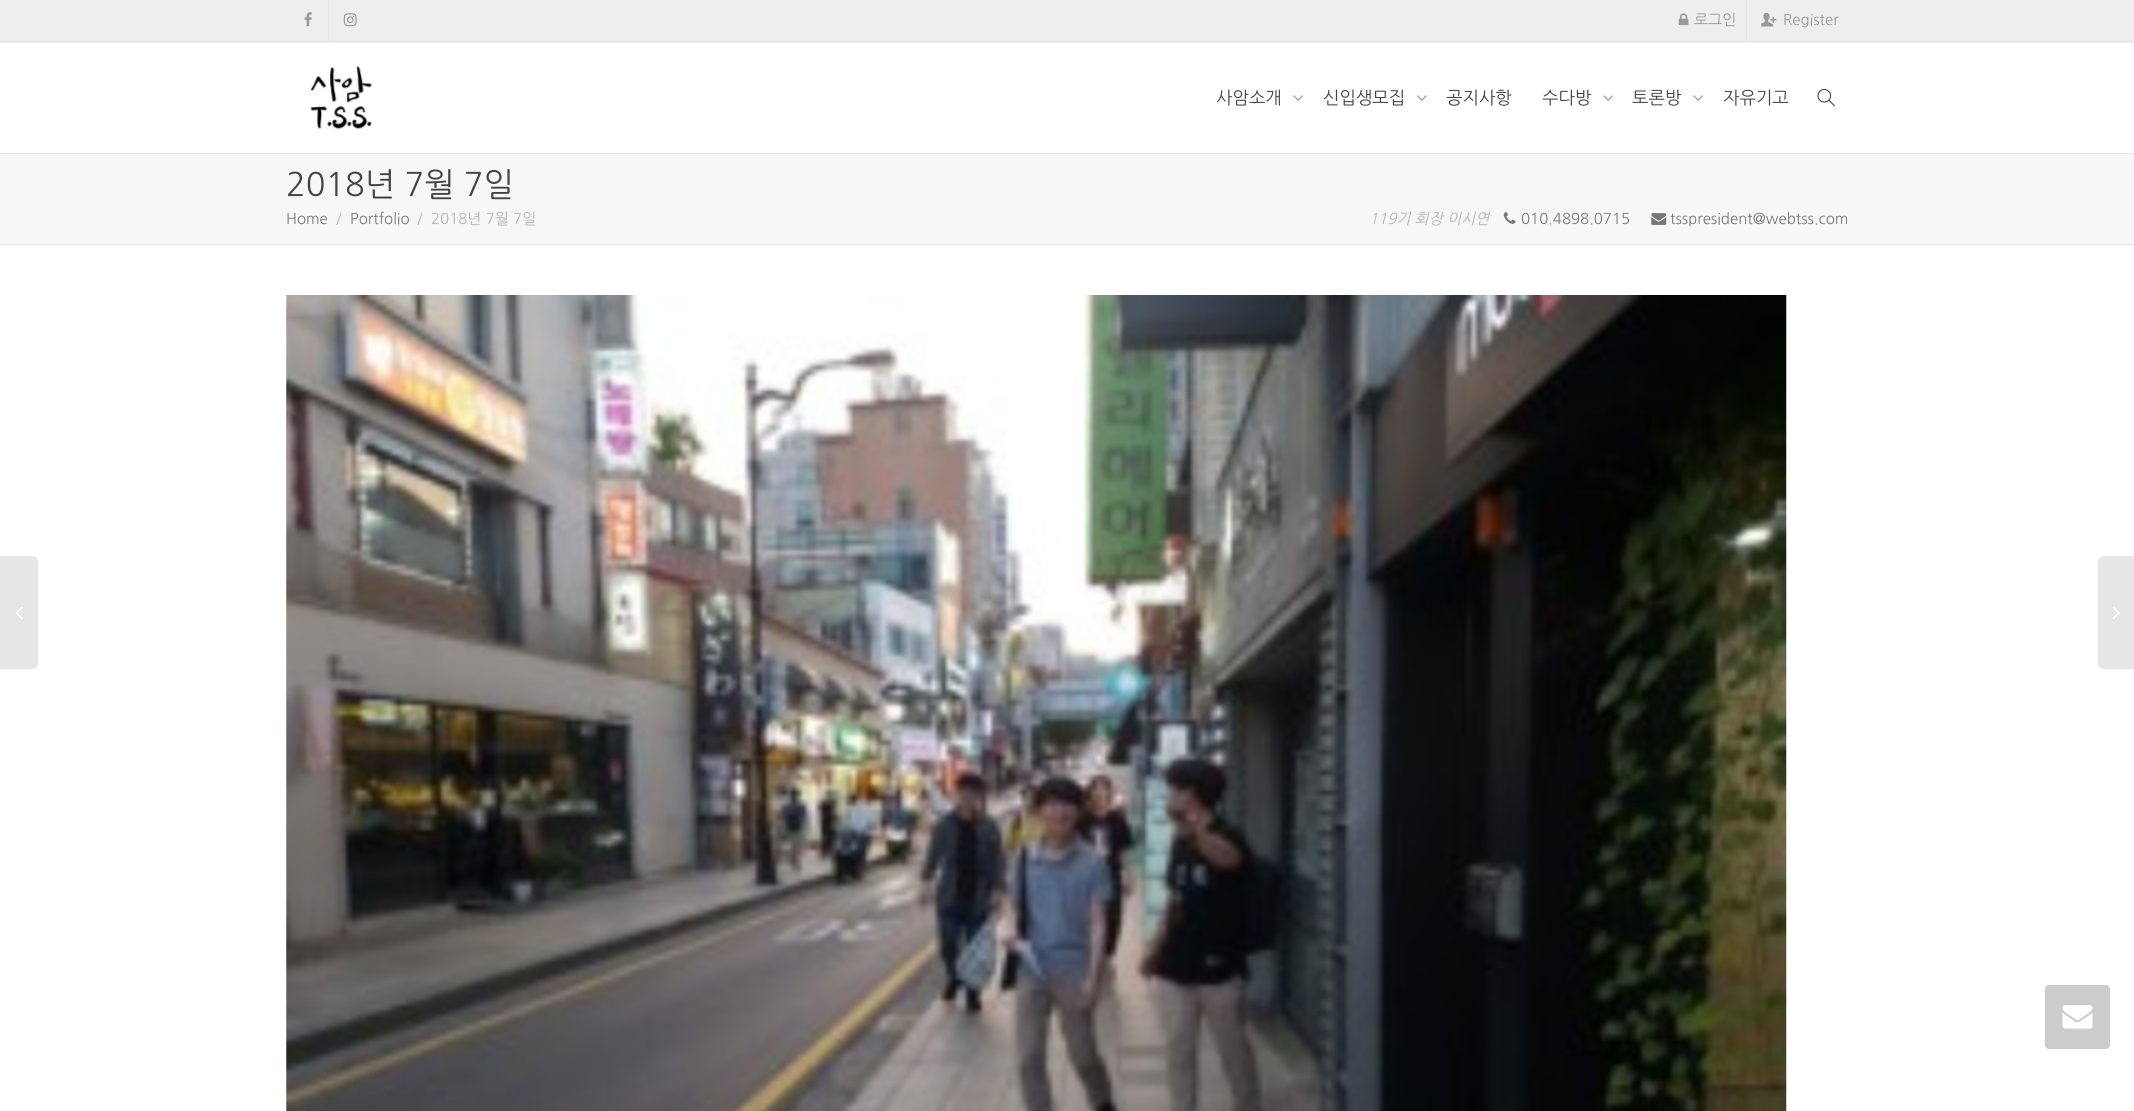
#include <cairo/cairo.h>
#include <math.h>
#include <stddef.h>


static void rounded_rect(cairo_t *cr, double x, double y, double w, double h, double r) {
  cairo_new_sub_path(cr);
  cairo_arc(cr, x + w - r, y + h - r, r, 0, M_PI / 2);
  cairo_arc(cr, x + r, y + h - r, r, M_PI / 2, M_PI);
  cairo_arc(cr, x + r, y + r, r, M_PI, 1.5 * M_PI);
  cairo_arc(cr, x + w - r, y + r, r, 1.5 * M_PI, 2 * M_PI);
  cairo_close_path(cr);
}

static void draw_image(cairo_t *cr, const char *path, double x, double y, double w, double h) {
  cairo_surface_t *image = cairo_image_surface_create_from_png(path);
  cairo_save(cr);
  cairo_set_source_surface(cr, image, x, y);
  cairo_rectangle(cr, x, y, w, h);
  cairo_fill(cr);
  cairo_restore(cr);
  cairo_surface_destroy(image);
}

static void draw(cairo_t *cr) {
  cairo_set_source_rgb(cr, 1, 1, 1);
  cairo_paint(cr);
  cairo_set_source_rgb(cr, 238 / 255.0, 238 / 255.0, 238 / 255.0);
  cairo_rectangle(cr, 0, 0, 2134, 43);
  cairo_fill(cr);
  cairo_set_source_rgb(cr, 229 / 255.0, 229 / 255.0, 229 / 255.0);
  cairo_rectangle(cr, 0, 41, 2134, 1);
  cairo_fill(cr);
  cairo_rectangle(cr, 328, 0, 1, 41);
  cairo_fill(cr);
  draw_image(cr, "images/1.png", 304, 12, 8, 15);
  draw_image(cr, "images/2.png", 343, 13, 14, 14);
  cairo_rectangle(cr, 1746, 0, 1, 41);
  cairo_fill(cr);
  draw_image(cr, "images/3.png", 1678, 13, 11, 13);
  draw_image(cr, "images/4.png", 1761, 13, 16, 14);
  cairo_rectangle(cr, 0, 153, 2134, 1);
  cairo_fill(cr);
  draw_image(cr, "images/5.png", 310, 66, 63, 64);
  draw_image(cr, "images/6.png", 1293, 95, 10, 6);
  draw_image(cr, "images/7.png", 1417, 95, 10, 6);
  draw_image(cr, "images/6.png", 1603, 95, 10, 6);
  draw_image(cr, "images/6.png", 1693, 95, 10, 6);
  draw_image(cr, "images/8.png", 1817, 88, 18, 19);
  cairo_set_source_rgb(cr, 247 / 255.0, 247 / 255.0, 247 / 255.0);
  cairo_rectangle(cr, 0, 154, 2134, 90);
  cairo_fill(cr);
  cairo_set_source_rgb(cr, 229 / 255.0, 229 / 255.0, 229 / 255.0);
  cairo_rectangle(cr, 0, 244, 2134, 1);
  cairo_fill(cr);
  draw_image(cr, "images/9.png", 1503, 212, 13, 12);
  draw_image(cr, "images/10.png", 1651, 213, 16, 12);
  draw_image(cr, "images/11.png", 286, 295, 1501, 816);
  cairo_set_source_rgb(cr, 230 / 255.0, 230 / 255.0, 230 / 255.0);
  cairo_new_path(cr);
  cairo_move_to(cr, -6, 556);
  cairo_line_to(cr, 32, 556);
  cairo_curve_to(cr, 35.5, 556, 38, 558.5, 38, 562);
  cairo_line_to(cr, 38, 663);
  cairo_curve_to(cr, 38, 666.5, 35.5, 669, 32, 669);
  cairo_line_to(cr, -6, 669);
  cairo_close_path(cr);
  cairo_fill(cr);
  draw_image(cr, "images/12.png", 15, 607, 8, 12);
  cairo_new_path(cr);
  cairo_move_to(cr, 2104, 556);
  cairo_line_to(cr, 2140, 556);
  cairo_line_to(cr, 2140, 669);
  cairo_line_to(cr, 2104, 669);
  cairo_curve_to(cr, 2100.5, 669, 2098, 666.5, 2098, 663);
  cairo_line_to(cr, 2098, 562);
  cairo_curve_to(cr, 2098, 558.5, 2100.5, 556, 2104, 556);
  cairo_close_path(cr);
  cairo_fill(cr);
  draw_image(cr, "images/13.png", 2112, 606, 8, 13);
  cairo_set_source_rgb(cr, 204 / 255.0, 204 / 255.0, 204 / 255.0);
  rounded_rect(cr, 2045, 985, 65, 64, 4);
  cairo_fill(cr);
  draw_image(cr, "images/14.png", 2062, 1005, 31, 24);
  cairo_select_font_face(cr, "NanumGothic", CAIRO_FONT_SLANT_NORMAL, CAIRO_FONT_WEIGHT_NORMAL);
  cairo_set_font_size(cr, 15);
  cairo_set_source_rgb(cr, 153 / 255.0, 153 / 255.0, 153 / 255.0);
  cairo_move_to(cr, 1694, 25);
  cairo_show_text(cr, "로그인");
  cairo_move_to(cr, 1783, 25);
  cairo_show_text(cr, "Register");
  cairo_set_font_size(cr, 17.5);
  cairo_set_source_rgb(cr, 68 / 255.0, 68 / 255.0, 68 / 255.0);
  cairo_move_to(cr, 1216, 104);
  cairo_show_text(cr, "사암소개");
  cairo_move_to(cr, 1323, 104);
  cairo_show_text(cr, "신입생모집");
  cairo_move_to(cr, 1446, 104);
  cairo_show_text(cr, "공지사항");
  cairo_move_to(cr, 1542, 104);
  cairo_show_text(cr, "수다방");
  cairo_move_to(cr, 1632, 104);
  cairo_show_text(cr, "토론방");
  cairo_move_to(cr, 1723, 104);
  cairo_show_text(cr, "자유기고");
  cairo_set_font_size(cr, 32.5);
  cairo_move_to(cr, 286, 196);
  cairo_show_text(cr, "2018년 7월 7일");
  cairo_set_font_size(cr, 15);
  cairo_set_source_rgb(cr, 119 / 255.0, 119 / 255.0, 119 / 255.0);
  cairo_move_to(cr, 286, 224);
  cairo_show_text(cr, "Home");
  cairo_set_source_rgb(cr, 179 / 255.0, 179 / 255.0, 179 / 255.0);
  cairo_move_to(cr, 336, 224);
  cairo_show_text(cr, "/");
  cairo_set_source_rgb(cr, 119 / 255.0, 119 / 255.0, 119 / 255.0);
  cairo_move_to(cr, 350, 224);
  cairo_show_text(cr, "Portfolio");
  cairo_set_source_rgb(cr, 179 / 255.0, 179 / 255.0, 179 / 255.0);
  cairo_move_to(cr, 417, 224);
  cairo_show_text(cr, "/");
  cairo_move_to(cr, 431, 224);
  cairo_show_text(cr, "2018년 7월 7일");
  cairo_select_font_face(cr, "NanumGothic", CAIRO_FONT_SLANT_ITALIC, CAIRO_FONT_WEIGHT_NORMAL);
  cairo_move_to(cr, 1369, 224);
  cairo_show_text(cr, "119기 회장 이시연");
  cairo_select_font_face(cr, "NanumGothic", CAIRO_FONT_SLANT_NORMAL, CAIRO_FONT_WEIGHT_NORMAL);
  cairo_set_source_rgb(cr, 119 / 255.0, 119 / 255.0, 119 / 255.0);
  cairo_move_to(cr, 1521, 224);
  cairo_show_text(cr, "010.4898.0715");
  cairo_move_to(cr, 1670, 224);
  cairo_show_text(cr, "tsspresident@webtss.com");
}

int main(void) {
  cairo_surface_t *surface = cairo_image_surface_create(CAIRO_FORMAT_RGB24, 2134, 1111);
  cairo_t *cr = cairo_create(surface);
  cairo_font_options_t *options = cairo_font_options_create();
  cairo_font_options_set_hint_metrics(options, CAIRO_HINT_METRICS_OFF);
  cairo_font_options_set_hint_style(options, CAIRO_HINT_STYLE_NONE);
  cairo_set_font_options(cr, options);
  cairo_set_miter_limit(cr, 4);
  draw(cr);
  cairo_surface_write_to_png(surface, "out.png");
  cairo_font_options_destroy(options);
  cairo_destroy(cr);
  cairo_surface_destroy(surface);
  return 0;
}
